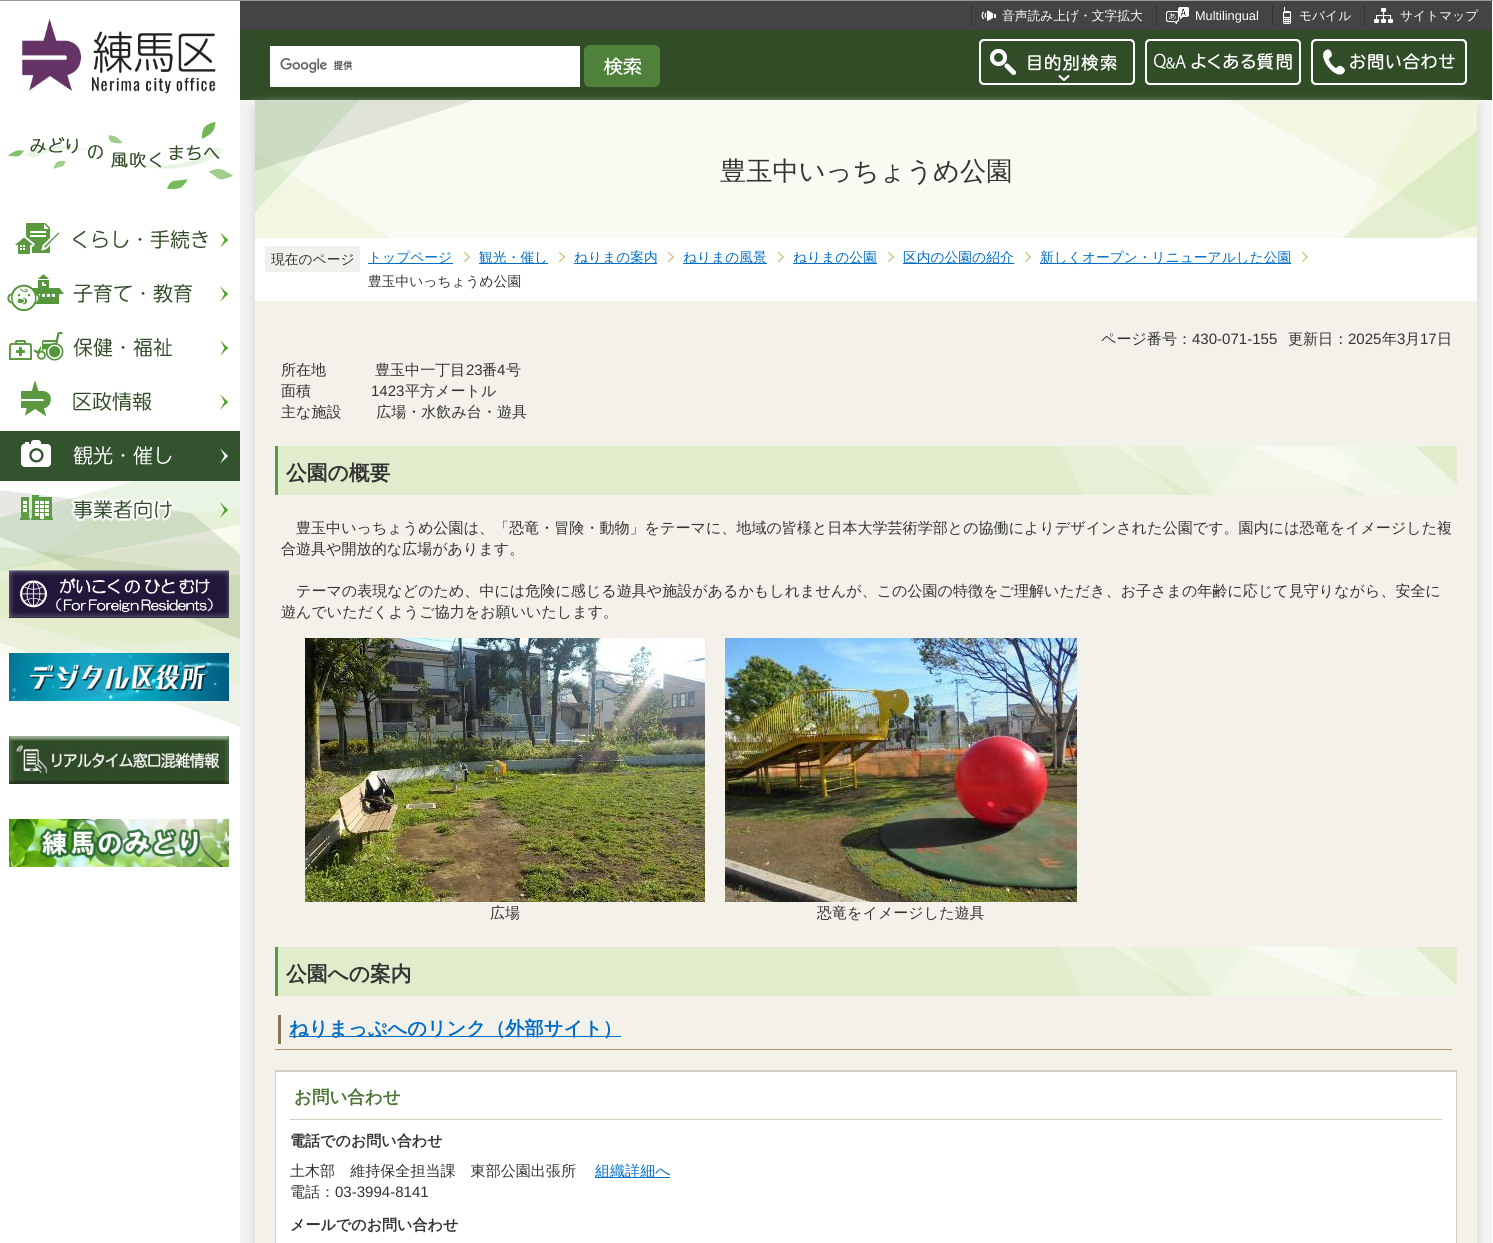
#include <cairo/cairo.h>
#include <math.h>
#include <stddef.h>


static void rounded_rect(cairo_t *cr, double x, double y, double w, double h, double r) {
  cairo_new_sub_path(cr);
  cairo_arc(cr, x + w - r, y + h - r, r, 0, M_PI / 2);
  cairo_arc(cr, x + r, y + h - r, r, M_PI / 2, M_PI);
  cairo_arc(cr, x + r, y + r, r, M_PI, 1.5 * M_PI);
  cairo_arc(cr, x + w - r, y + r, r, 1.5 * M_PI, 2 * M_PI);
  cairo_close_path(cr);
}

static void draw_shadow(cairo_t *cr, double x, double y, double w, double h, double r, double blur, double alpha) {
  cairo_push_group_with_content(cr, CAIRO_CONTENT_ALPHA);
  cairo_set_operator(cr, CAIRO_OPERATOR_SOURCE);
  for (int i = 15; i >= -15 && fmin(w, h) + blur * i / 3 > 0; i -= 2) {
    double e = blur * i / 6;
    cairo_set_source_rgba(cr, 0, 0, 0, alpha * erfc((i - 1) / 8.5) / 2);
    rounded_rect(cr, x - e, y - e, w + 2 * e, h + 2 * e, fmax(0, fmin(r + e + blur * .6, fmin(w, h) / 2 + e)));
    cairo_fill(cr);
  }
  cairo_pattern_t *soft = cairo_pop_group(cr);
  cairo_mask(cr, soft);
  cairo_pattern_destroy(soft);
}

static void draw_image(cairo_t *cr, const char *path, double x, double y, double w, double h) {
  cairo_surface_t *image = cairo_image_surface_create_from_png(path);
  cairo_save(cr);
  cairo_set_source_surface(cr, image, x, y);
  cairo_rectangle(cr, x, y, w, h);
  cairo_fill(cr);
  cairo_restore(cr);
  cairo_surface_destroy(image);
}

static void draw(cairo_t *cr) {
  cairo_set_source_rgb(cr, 1, 1, 1);
  cairo_paint(cr);
  cairo_set_source_rgb(cr, 153 / 255.0, 153 / 255.0, 153 / 255.0);
  cairo_rectangle(cr, 0, 0, 1493, 1);
  cairo_fill(cr);
  cairo_set_source_rgb(cr, 244 / 255.0, 244 / 255.0, 244 / 255.0);
  cairo_rectangle(cr, 240, 100, 1252, 1143);
  cairo_fill(cr);
  cairo_set_source_rgb(cr, 48 / 255.0, 77 / 255.0, 39 / 255.0);
  cairo_rectangle(cr, 240, 30, 1252, 70);
  cairo_fill(cr);
  cairo_set_source_rgb(cr, 214 / 255.0, 218 / 255.0, 213 / 255.0);
  draw_shadow(cr, 253, 106, 1210, 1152, 0, 5, 1);
  draw_image(cr, "images/1.png", 0, 481, 240, 246);
  draw_image(cr, "images/2.png", 22, 19, 194, 72);
  draw_image(cr, "images/3.png", 92, 77, 124, 17);
  draw_image(cr, "images/4.png", 8, 122, 225, 67);
  draw_image(cr, "images/5.png", 15, 223, 213, 31);
  draw_image(cr, "images/6.png", 7, 274, 221, 38);
  draw_image(cr, "images/7.png", 9, 332, 219, 29);
  draw_image(cr, "images/8.png", 21, 380, 207, 37);
  draw_image(cr, "images/9.png", 0, 431, 240, 50);
  draw_image(cr, "images/10.png", 20, 495, 208, 26);
  draw_image(cr, "images/11.png", 9, 570, 220, 48);
  draw_image(cr, "images/12.png", 9, 653, 220, 48);
  draw_image(cr, "images/13.png", 9, 736, 220, 48);
  draw_image(cr, "images/14.png", 9, 819, 220, 48);
  cairo_set_source_rgb(cr, 68 / 255.0, 68 / 255.0, 68 / 255.0);
  cairo_rectangle(cr, 240, 1, 1252, 29);
  cairo_fill(cr);
  cairo_set_source_rgb(cr, 54 / 255.0, 54 / 255.0, 54 / 255.0);
  cairo_rectangle(cr, 971, 5, 1, 21);
  cairo_fill(cr);
  draw_image(cr, "images/15.png", 981, 10, 15, 11);
  cairo_rectangle(cr, 1156, 5, 1, 21);
  cairo_fill(cr);
  draw_image(cr, "images/16.png", 1166, 7, 23, 18);
  cairo_rectangle(cr, 1272, 5, 1, 21);
  cairo_fill(cr);
  draw_image(cr, "images/17.png", 1283, 7, 8, 17);
  cairo_rectangle(cr, 1364, 5, 1, 21);
  cairo_fill(cr);
  draw_image(cr, "images/18.png", 1374, 8, 19, 15);
  cairo_set_source_rgb(cr, 1, 1, 1);
  cairo_rectangle(cr, 270, 46, 310, 41);
  cairo_fill(cr);
  draw_image(cr, "images/19.png", 280, 58, 73, 15);
  cairo_set_source_rgb(cr, 80 / 255.0, 129 / 255.0, 59 / 255.0);
  rounded_rect(cr, 584.5, 45.5, 75, 41, 5.5);
  cairo_fill_preserve(cr);
  cairo_set_line_width(cr, 1);
  cairo_stroke(cr);
  draw_image(cr, "images/20.png", 603, 57, 39, 18);
  draw_image(cr, "images/21.png", 979, 39, 156, 46);
  draw_image(cr, "images/22.png", 1145, 39, 156, 46);
  draw_image(cr, "images/23.png", 1311, 39, 156, 46);
  cairo_set_source_rgb(cr, 214 / 255.0, 218 / 255.0, 213 / 255.0);
  draw_shadow(cr, 269, 106, 1210, 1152, 0, 5, 1);
  cairo_set_source_rgb(cr, 244 / 255.0, 241 / 255.0, 234 / 255.0);
  cairo_rectangle(cr, 255, 301, 1222, 942);
  cairo_fill(cr);
  cairo_set_source_rgb(cr, 249 / 255.0, 251 / 255.0, 243 / 255.0);
  cairo_rectangle(cr, 255, 100, 1222, 138);
  cairo_fill(cr);
  draw_image(cr, "images/24.png", 255, 100, 1222, 138);
  cairo_set_source_rgb(cr, 1, 1, 1);
  cairo_rectangle(cr, 255, 238, 1222, 63);
  cairo_fill(cr);
  cairo_set_source_rgb(cr, 241 / 255.0, 240 / 255.0, 236 / 255.0);
  cairo_rectangle(cr, 265, 246, 95, 26);
  cairo_fill(cr);
  draw_image(cr, "images/25.png", 464, 252, 6, 10);
  cairo_set_source_rgb(cr, 0, 109 / 255.0, 199 / 255.0);
  cairo_rectangle(cr, 368, 263, 85, 1);
  cairo_fill(cr);
  draw_image(cr, "images/25.png", 559, 252, 6, 10);
  cairo_rectangle(cr, 479, 263, 69, 1);
  cairo_fill(cr);
  draw_image(cr, "images/25.png", 668, 252, 6, 10);
  cairo_rectangle(cr, 574, 263, 83, 1);
  cairo_fill(cr);
  draw_image(cr, "images/25.png", 778, 252, 6, 10);
  cairo_rectangle(cr, 683, 263, 84, 1);
  cairo_fill(cr);
  draw_image(cr, "images/25.png", 888, 252, 6, 10);
  cairo_rectangle(cr, 793, 263, 84, 1);
  cairo_fill(cr);
  draw_image(cr, "images/25.png", 1025, 252, 6, 10);
  cairo_rectangle(cr, 903, 263, 111, 1);
  cairo_fill(cr);
  draw_image(cr, "images/25.png", 1302, 252, 6, 10);
  cairo_rectangle(cr, 1040, 263, 251, 1);
  cairo_fill(cr);
  cairo_set_source_rgb(cr, 224 / 255.0, 236 / 255.0, 203 / 255.0);
  cairo_rectangle(cr, 278, 446, 1179, 49);
  cairo_fill(cr);
  draw_image(cr, "images/26.png", 1060, 446, 397, 49);
  cairo_set_source_rgb(cr, 91 / 255.0, 154 / 255.0, 65 / 255.0);
  cairo_rectangle(cr, 275, 446, 3, 49);
  cairo_fill(cr);
  draw_image(cr, "images/27.png", 305, 638, 400, 264);
  draw_image(cr, "images/28.png", 725, 638, 352, 264);
  cairo_set_source_rgb(cr, 224 / 255.0, 236 / 255.0, 203 / 255.0);
  cairo_rectangle(cr, 278, 947, 1179, 49);
  cairo_fill(cr);
  draw_image(cr, "images/26.png", 1060, 947, 397, 49);
  cairo_set_source_rgb(cr, 91 / 255.0, 154 / 255.0, 65 / 255.0);
  cairo_rectangle(cr, 275, 947, 3, 49);
  cairo_fill(cr);
  cairo_set_source_rgb(cr, 170 / 255.0, 149 / 255.0, 100 / 255.0);
  cairo_rectangle(cr, 275, 1049, 1177, 1);
  cairo_fill(cr);
  cairo_set_source_rgb(cr, 136 / 255.0, 119 / 255.0, 78 / 255.0);
  cairo_rectangle(cr, 278, 1015, 3, 29);
  cairo_fill(cr);
  cairo_set_source_rgb(cr, 0, 109 / 255.0, 199 / 255.0);
  cairo_rectangle(cr, 289, 1036, 332, 1);
  cairo_fill(cr);
  cairo_set_source_rgb(cr, 1, 1, 1);
  cairo_rectangle(cr, 276, 1072, 1180, 171);
  cairo_fill(cr);
  cairo_set_source_rgb(cr, 214 / 255.0, 205 / 255.0, 192 / 255.0);
  cairo_rectangle(cr, 275, 1070, 1182, 2);
  cairo_fill(cr);
  cairo_rectangle(cr, 1456, 1070, 1, 173);
  cairo_fill(cr);
  cairo_rectangle(cr, 275, 1070, 1, 173);
  cairo_fill(cr);
  cairo_rectangle(cr, 290, 1119, 1152, 1);
  cairo_fill(cr);
  cairo_set_source_rgb(cr, 0, 109 / 255.0, 199 / 255.0);
  cairo_rectangle(cr, 595, 1177, 75, 1);
  cairo_fill(cr);
  cairo_select_font_face(cr, "WenQuanYi Zen Hei Medium", CAIRO_FONT_SLANT_NORMAL, CAIRO_FONT_WEIGHT_NORMAL);
  cairo_set_font_size(cr, 12.75);
  cairo_set_source_rgb(cr, 1, 1, 1);
  cairo_move_to(cr, 1002, 20);
  cairo_show_text(cr, "音声読み上げ・文字拡大");
  cairo_select_font_face(cr, "Liberation Sans", CAIRO_FONT_SLANT_NORMAL, CAIRO_FONT_WEIGHT_NORMAL);
  cairo_move_to(cr, 1195, 20);
  cairo_show_text(cr, "Multilingual");
  cairo_select_font_face(cr, "WenQuanYi Zen Hei Medium", CAIRO_FONT_SLANT_NORMAL, CAIRO_FONT_WEIGHT_NORMAL);
  cairo_move_to(cr, 1299, 20);
  cairo_show_text(cr, "モバイル");
  cairo_move_to(cr, 1400, 20);
  cairo_show_text(cr, "サイトマップ");
  cairo_set_font_size(cr, 26.25);
  cairo_set_source_rgb(cr, 51 / 255.0, 51 / 255.0, 51 / 255.0);
  cairo_move_to(cr, 720, 180);
  cairo_show_text(cr, "豊玉中いっちょうめ公園");
  cairo_set_font_size(cr, 13.75);
  cairo_move_to(cr, 271, 264);
  cairo_show_text(cr, "現在のページ");
  cairo_set_source_rgb(cr, 0, 109 / 255.0, 199 / 255.0);
  cairo_move_to(cr, 368, 262);
  cairo_show_text(cr, "トップページ");
  cairo_move_to(cr, 479, 262);
  cairo_show_text(cr, "観光・催し");
  cairo_move_to(cr, 574, 262);
  cairo_show_text(cr, "ねりまの案内");
  cairo_move_to(cr, 683, 262);
  cairo_show_text(cr, "ねりまの風景");
  cairo_move_to(cr, 793, 262);
  cairo_show_text(cr, "ねりまの公園");
  cairo_move_to(cr, 903, 262);
  cairo_show_text(cr, "区内の公園の紹介");
  cairo_move_to(cr, 1040, 262);
  cairo_show_text(cr, "新しくオープン・リニューアルした公園");
  cairo_set_source_rgb(cr, 51 / 255.0, 51 / 255.0, 51 / 255.0);
  cairo_move_to(cr, 368, 286);
  cairo_show_text(cr, "豊玉中いっちょうめ公園");
  cairo_set_font_size(cr, 15.05);
  cairo_move_to(cr, 1101, 344);
  cairo_show_text(cr, "ページ番号：");
  cairo_select_font_face(cr, "Liberation Sans", CAIRO_FONT_SLANT_NORMAL, CAIRO_FONT_WEIGHT_NORMAL);
  cairo_move_to(cr, 1192, 344);
  cairo_show_text(cr, "430-071-155");
  cairo_select_font_face(cr, "WenQuanYi Zen Hei Medium", CAIRO_FONT_SLANT_NORMAL, CAIRO_FONT_WEIGHT_NORMAL);
  cairo_move_to(cr, 1288, 344);
  cairo_show_text(cr, "更新日：");
  cairo_select_font_face(cr, "Liberation Sans", CAIRO_FONT_SLANT_NORMAL, CAIRO_FONT_WEIGHT_NORMAL);
  cairo_move_to(cr, 1348, 344);
  cairo_show_text(cr, "2025");
  cairo_select_font_face(cr, "WenQuanYi Zen Hei Medium", CAIRO_FONT_SLANT_NORMAL, CAIRO_FONT_WEIGHT_NORMAL);
  cairo_move_to(cr, 1382, 344);
  cairo_show_text(cr, "年");
  cairo_select_font_face(cr, "Liberation Sans", CAIRO_FONT_SLANT_NORMAL, CAIRO_FONT_WEIGHT_NORMAL);
  cairo_move_to(cr, 1397, 344);
  cairo_show_text(cr, "3");
  cairo_select_font_face(cr, "WenQuanYi Zen Hei Medium", CAIRO_FONT_SLANT_NORMAL, CAIRO_FONT_WEIGHT_NORMAL);
  cairo_move_to(cr, 1405, 344);
  cairo_show_text(cr, "月");
  cairo_select_font_face(cr, "Liberation Sans", CAIRO_FONT_SLANT_NORMAL, CAIRO_FONT_WEIGHT_NORMAL);
  cairo_move_to(cr, 1420, 344);
  cairo_show_text(cr, "17");
  cairo_select_font_face(cr, "WenQuanYi Zen Hei Medium", CAIRO_FONT_SLANT_NORMAL, CAIRO_FONT_WEIGHT_NORMAL);
  cairo_move_to(cr, 1437, 344);
  cairo_show_text(cr, "日");
  cairo_move_to(cr, 281, 375);
  cairo_show_text(cr, "所在地");
  cairo_move_to(cr, 375, 375);
  cairo_show_text(cr, "豊玉中一丁目");
  cairo_select_font_face(cr, "Liberation Sans", CAIRO_FONT_SLANT_NORMAL, CAIRO_FONT_WEIGHT_NORMAL);
  cairo_move_to(cr, 466, 375);
  cairo_show_text(cr, "23");
  cairo_select_font_face(cr, "WenQuanYi Zen Hei Medium", CAIRO_FONT_SLANT_NORMAL, CAIRO_FONT_WEIGHT_NORMAL);
  cairo_move_to(cr, 482, 375);
  cairo_show_text(cr, "番");
  cairo_select_font_face(cr, "Liberation Sans", CAIRO_FONT_SLANT_NORMAL, CAIRO_FONT_WEIGHT_NORMAL);
  cairo_move_to(cr, 497, 375);
  cairo_show_text(cr, "4");
  cairo_select_font_face(cr, "WenQuanYi Zen Hei Medium", CAIRO_FONT_SLANT_NORMAL, CAIRO_FONT_WEIGHT_NORMAL);
  cairo_move_to(cr, 506, 375);
  cairo_show_text(cr, "号");
  cairo_move_to(cr, 281, 396);
  cairo_show_text(cr, "面積");
  cairo_select_font_face(cr, "Liberation Sans", CAIRO_FONT_SLANT_NORMAL, CAIRO_FONT_WEIGHT_NORMAL);
  cairo_move_to(cr, 371, 396);
  cairo_show_text(cr, "1423");
  cairo_select_font_face(cr, "WenQuanYi Zen Hei Medium", CAIRO_FONT_SLANT_NORMAL, CAIRO_FONT_WEIGHT_NORMAL);
  cairo_move_to(cr, 405, 396);
  cairo_show_text(cr, "平方メートル");
  cairo_move_to(cr, 281, 417);
  cairo_show_text(cr, "主な施設　 　広場・水飲み台・遊具");
  cairo_select_font_face(cr, "WenQuanYi Zen Hei", CAIRO_FONT_SLANT_NORMAL, CAIRO_FONT_WEIGHT_BOLD);
  cairo_set_font_size(cr, 20.75);
  cairo_move_to(cr, 286, 480);
  cairo_show_text(cr, "公園の概要");
  cairo_select_font_face(cr, "WenQuanYi Zen Hei Medium", CAIRO_FONT_SLANT_NORMAL, CAIRO_FONT_WEIGHT_NORMAL);
  cairo_set_font_size(cr, 15.05);
  cairo_move_to(cr, 296, 533);
  cairo_show_text(cr, "豊玉中いっちょうめ公園は、「恐竜・冒険・動物」をテーマに、地域の皆様と日本大学芸術学部との協働によりデザインされた公園です。園内には恐竜をイメージした複");
  cairo_move_to(cr, 281, 554);
  cairo_show_text(cr, "合遊具や開放的な広場があります。");
  cairo_move_to(cr, 296, 596);
  cairo_show_text(cr, "テーマの表現などのため、中には危険に感じる遊具や施設があるかもしれませんが、この公園の特徴をご理解いただき、お子さまの年齢に応じて見守りながら、安全に");
  cairo_move_to(cr, 281, 617);
  cairo_show_text(cr, "遊んでいただくようご協力をお願いいたします。");
  cairo_move_to(cr, 490, 918);
  cairo_show_text(cr, "広場");
  cairo_move_to(cr, 817, 918);
  cairo_show_text(cr, "恐竜をイメージした遊具");
  cairo_select_font_face(cr, "WenQuanYi Zen Hei", CAIRO_FONT_SLANT_NORMAL, CAIRO_FONT_WEIGHT_BOLD);
  cairo_set_font_size(cr, 20.75);
  cairo_move_to(cr, 286, 981);
  cairo_show_text(cr, "公園への案内");
  cairo_set_font_size(cr, 19.25);
  cairo_set_source_rgb(cr, 0, 109 / 255.0, 199 / 255.0);
  cairo_move_to(cr, 289, 1035);
  cairo_show_text(cr, "ねりまっぷへのリンク（外部サイト）");
  cairo_set_font_size(cr, 17.5);
  cairo_set_source_rgb(cr, 73 / 255.0, 117 / 255.0, 53 / 255.0);
  cairo_move_to(cr, 294, 1103);
  cairo_show_text(cr, "お問い合わせ");
  cairo_set_font_size(cr, 15.05);
  cairo_set_source_rgb(cr, 51 / 255.0, 51 / 255.0, 51 / 255.0);
  cairo_move_to(cr, 290, 1146);
  cairo_show_text(cr, "電話でのお問い合わせ");
  cairo_select_font_face(cr, "WenQuanYi Zen Hei Medium", CAIRO_FONT_SLANT_NORMAL, CAIRO_FONT_WEIGHT_NORMAL);
  cairo_move_to(cr, 290, 1176);
  cairo_show_text(cr, "土木部　維持保全担当課　東部公園出張所");
  cairo_set_source_rgb(cr, 0, 109 / 255.0, 199 / 255.0);
  cairo_move_to(cr, 595, 1176);
  cairo_show_text(cr, "組織詳細へ");
  cairo_set_source_rgb(cr, 51 / 255.0, 51 / 255.0, 51 / 255.0);
  cairo_move_to(cr, 290, 1197);
  cairo_show_text(cr, "電話：");
  cairo_select_font_face(cr, "Liberation Sans", CAIRO_FONT_SLANT_NORMAL, CAIRO_FONT_WEIGHT_NORMAL);
  cairo_move_to(cr, 335, 1197);
  cairo_show_text(cr, "03-3994-8141");
  cairo_select_font_face(cr, "WenQuanYi Zen Hei", CAIRO_FONT_SLANT_NORMAL, CAIRO_FONT_WEIGHT_BOLD);
  cairo_move_to(cr, 290, 1230);
  cairo_show_text(cr, "メールでのお問い合わせ");
}

int main(void) {
  cairo_surface_t *surface = cairo_image_surface_create(CAIRO_FORMAT_RGB24, 1493, 1243);
  cairo_t *cr = cairo_create(surface);
  cairo_font_options_t *options = cairo_font_options_create();
  cairo_font_options_set_hint_metrics(options, CAIRO_HINT_METRICS_OFF);
  cairo_font_options_set_hint_style(options, CAIRO_HINT_STYLE_NONE);
  cairo_set_font_options(cr, options);
  cairo_set_miter_limit(cr, 4);
  draw(cr);
  cairo_surface_write_to_png(surface, "out.png");
  cairo_font_options_destroy(options);
  cairo_destroy(cr);
  cairo_surface_destroy(surface);
  return 0;
}
